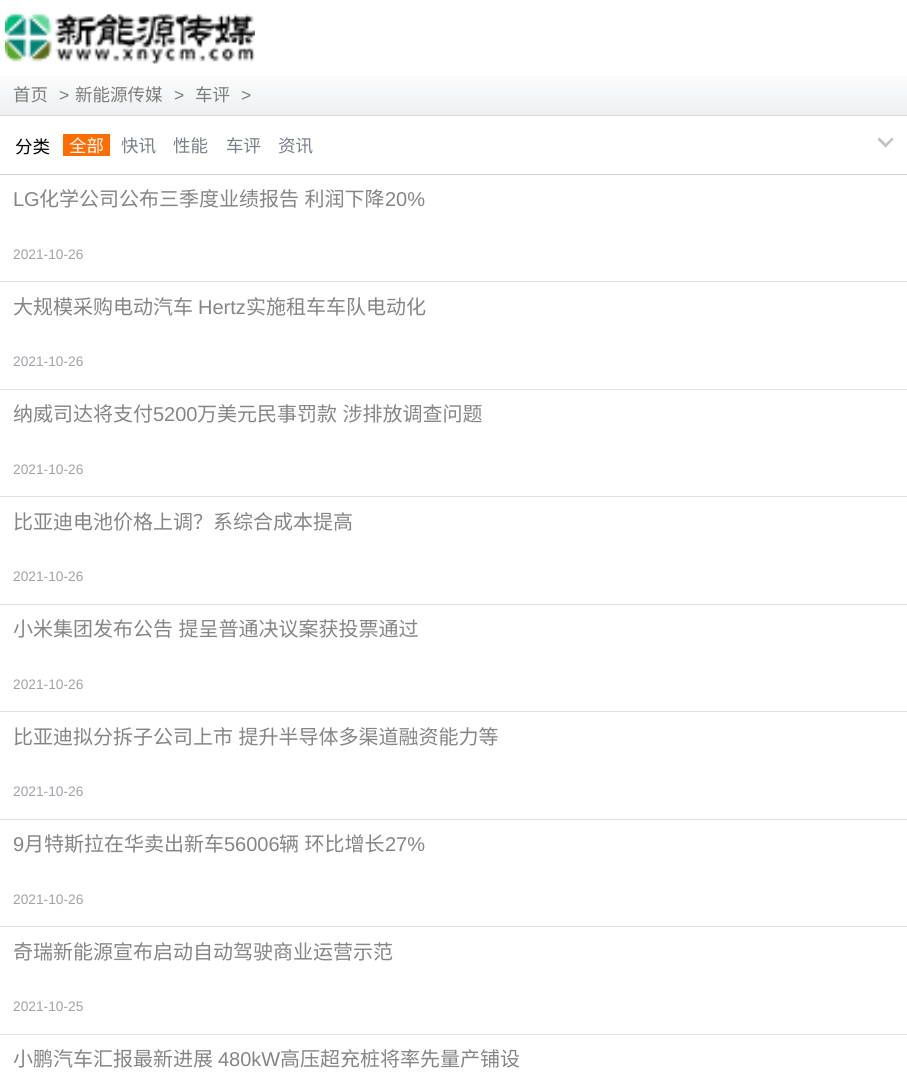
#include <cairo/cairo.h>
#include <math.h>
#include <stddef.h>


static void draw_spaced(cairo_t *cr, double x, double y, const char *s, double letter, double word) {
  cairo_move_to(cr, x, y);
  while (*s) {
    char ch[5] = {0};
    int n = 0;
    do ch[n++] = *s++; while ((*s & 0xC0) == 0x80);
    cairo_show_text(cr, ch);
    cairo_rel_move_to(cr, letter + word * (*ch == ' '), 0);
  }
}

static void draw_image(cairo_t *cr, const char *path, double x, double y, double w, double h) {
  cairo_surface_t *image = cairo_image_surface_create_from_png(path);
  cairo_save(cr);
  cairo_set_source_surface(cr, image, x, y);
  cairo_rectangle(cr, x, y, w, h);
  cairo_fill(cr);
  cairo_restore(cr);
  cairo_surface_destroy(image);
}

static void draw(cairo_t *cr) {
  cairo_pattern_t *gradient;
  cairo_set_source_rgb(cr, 1, 1, 1);
  cairo_paint(cr);
  draw_image(cr, "images/1.png", 5, 13, 250, 51);
  gradient = cairo_pattern_create_linear(0, 75, 0, 115);
  cairo_pattern_add_color_stop_rgba(gradient, 0, 252 / 255.0, 252 / 255.0, 252 / 255.0, 1);
  cairo_pattern_add_color_stop_rgba(gradient, 1, 237 / 255.0, 239 / 255.0, 241 / 255.0, 1);
  cairo_set_source(cr, gradient);
  cairo_pattern_destroy(gradient);
  cairo_rectangle(cr, 0, 76, 907, 39);
  cairo_fill(cr);
  cairo_set_source_rgb(cr, 216 / 255.0, 217 / 255.0, 218 / 255.0);
  cairo_rectangle(cr, 0, 115, 907, 1);
  cairo_fill(cr);
  cairo_set_source_rgb(cr, 209 / 255.0, 210 / 255.0, 215 / 255.0);
  cairo_rectangle(cr, 0, 174, 907, 1);
  cairo_fill(cr);
  cairo_set_source_rgb(cr, 1, 108 / 255.0, 0);
  cairo_rectangle(cr, 63, 134, 47, 22);
  cairo_fill(cr);
  cairo_set_source_rgb(cr, 192 / 255.0, 192 / 255.0, 193 / 255.0);
  cairo_new_path(cr);
  cairo_move_to(cr, 893.5, 139.5);
  cairo_line_to(cr, 885.5, 147.5);
  cairo_line_to(cr, 884, 145.5);
  cairo_line_to(cr, 892, 137.5);
  cairo_close_path(cr);
  cairo_fill(cr);
  cairo_new_path(cr);
  cairo_move_to(cr, 887.5, 145.5);
  cairo_line_to(cr, 885.5, 147.5);
  cairo_line_to(cr, 877.5, 139.5);
  cairo_line_to(cr, 879.5, 137.5);
  cairo_close_path(cr);
  cairo_fill(cr);
  cairo_set_source_rgb(cr, 227 / 255.0, 227 / 255.0, 227 / 255.0);
  cairo_rectangle(cr, 0, 281, 907, 1);
  cairo_fill(cr);
  cairo_rectangle(cr, 0, 389, 907, 1);
  cairo_fill(cr);
  cairo_rectangle(cr, 0, 496, 907, 1);
  cairo_fill(cr);
  cairo_rectangle(cr, 0, 604, 907, 1);
  cairo_fill(cr);
  cairo_rectangle(cr, 0, 711, 907, 1);
  cairo_fill(cr);
  cairo_rectangle(cr, 0, 819, 907, 1);
  cairo_fill(cr);
  cairo_rectangle(cr, 0, 926, 907, 1);
  cairo_fill(cr);
  cairo_rectangle(cr, 0, 1034, 907, 1);
  cairo_fill(cr);
  cairo_select_font_face(cr, "Noto Sans CJK SC", CAIRO_FONT_SLANT_NORMAL, CAIRO_FONT_WEIGHT_NORMAL);
  cairo_set_font_size(cr, 17.5);
  cairo_set_source_rgb(cr, 124 / 255.0, 124 / 255.0, 124 / 255.0);
  cairo_move_to(cr, 13, 101);
  cairo_show_text(cr, "首页");
  cairo_select_font_face(cr, "Liberation Sans", CAIRO_FONT_SLANT_NORMAL, CAIRO_FONT_WEIGHT_NORMAL);
  cairo_move_to(cr, 59, 101);
  cairo_show_text(cr, ">");
  cairo_select_font_face(cr, "Noto Sans CJK SC", CAIRO_FONT_SLANT_NORMAL, CAIRO_FONT_WEIGHT_NORMAL);
  cairo_move_to(cr, 75, 101);
  cairo_show_text(cr, "新能源传媒");
  cairo_select_font_face(cr, "Liberation Sans", CAIRO_FONT_SLANT_NORMAL, CAIRO_FONT_WEIGHT_NORMAL);
  cairo_move_to(cr, 174, 101);
  cairo_show_text(cr, ">");
  cairo_select_font_face(cr, "Noto Sans CJK SC", CAIRO_FONT_SLANT_NORMAL, CAIRO_FONT_WEIGHT_NORMAL);
  cairo_move_to(cr, 195, 101);
  cairo_show_text(cr, "车评");
  cairo_select_font_face(cr, "Liberation Sans", CAIRO_FONT_SLANT_NORMAL, CAIRO_FONT_WEIGHT_NORMAL);
  cairo_move_to(cr, 241, 101);
  cairo_show_text(cr, ">");
  cairo_select_font_face(cr, "Noto Sans CJK SC", CAIRO_FONT_SLANT_NORMAL, CAIRO_FONT_WEIGHT_NORMAL);
  cairo_set_source_rgb(cr, 0, 0, 0);
  cairo_move_to(cr, 15, 153);
  cairo_show_text(cr, "分类");
  cairo_set_source_rgb(cr, 1, 1, 1);
  cairo_move_to(cr, 69, 152);
  cairo_show_text(cr, "全部");
  cairo_set_source_rgb(cr, 122 / 255.0, 126 / 255.0, 136 / 255.0);
  cairo_move_to(cr, 121, 152);
  cairo_show_text(cr, "快讯");
  cairo_move_to(cr, 173, 152);
  cairo_show_text(cr, "性能");
  cairo_move_to(cr, 226, 152);
  cairo_show_text(cr, "车评");
  cairo_move_to(cr, 278, 152);
  cairo_show_text(cr, "资讯");
  cairo_select_font_face(cr, "Liberation Sans", CAIRO_FONT_SLANT_NORMAL, CAIRO_FONT_WEIGHT_NORMAL);
  cairo_set_font_size(cr, 20);
  cairo_set_source_rgb(cr, 133 / 255.0, 133 / 255.0, 134 / 255.0);
  cairo_move_to(cr, 13, 206);
  cairo_show_text(cr, "LG");
  cairo_select_font_face(cr, "Noto Sans CJK SC", CAIRO_FONT_SLANT_NORMAL, CAIRO_FONT_WEIGHT_NORMAL);
  draw_spaced(cr, 39, 206, "化学公司公布三季度业绩报告 利润下降", 0, 1);
  cairo_select_font_face(cr, "Liberation Sans", CAIRO_FONT_SLANT_NORMAL, CAIRO_FONT_WEIGHT_NORMAL);
  cairo_move_to(cr, 385, 206);
  cairo_show_text(cr, "20%");
  cairo_set_font_size(cr, 13.75);
  cairo_set_source_rgb(cr, 159 / 255.0, 162 / 255.0, 169 / 255.0);
  cairo_move_to(cr, 13, 259);
  cairo_show_text(cr, "2021-10-26");
  cairo_select_font_face(cr, "Noto Sans CJK SC", CAIRO_FONT_SLANT_NORMAL, CAIRO_FONT_WEIGHT_NORMAL);
  cairo_set_font_size(cr, 20);
  cairo_set_source_rgb(cr, 133 / 255.0, 133 / 255.0, 134 / 255.0);
  cairo_move_to(cr, 13, 314);
  cairo_show_text(cr, "大规模采购电动汽车");
  cairo_select_font_face(cr, "Liberation Sans", CAIRO_FONT_SLANT_NORMAL, CAIRO_FONT_WEIGHT_NORMAL);
  cairo_move_to(cr, 198, 314);
  cairo_show_text(cr, "Hertz");
  cairo_select_font_face(cr, "Noto Sans CJK SC", CAIRO_FONT_SLANT_NORMAL, CAIRO_FONT_WEIGHT_NORMAL);
  cairo_move_to(cr, 246, 314);
  cairo_show_text(cr, "实施租车车队电动化");
  cairo_select_font_face(cr, "Liberation Sans", CAIRO_FONT_SLANT_NORMAL, CAIRO_FONT_WEIGHT_NORMAL);
  cairo_set_font_size(cr, 13.75);
  cairo_set_source_rgb(cr, 159 / 255.0, 162 / 255.0, 169 / 255.0);
  cairo_move_to(cr, 13, 366);
  cairo_show_text(cr, "2021-10-26");
  cairo_select_font_face(cr, "Noto Sans CJK SC", CAIRO_FONT_SLANT_NORMAL, CAIRO_FONT_WEIGHT_NORMAL);
  cairo_set_font_size(cr, 20);
  cairo_set_source_rgb(cr, 133 / 255.0, 133 / 255.0, 134 / 255.0);
  cairo_move_to(cr, 13, 421);
  cairo_show_text(cr, "纳威司达将支付");
  cairo_select_font_face(cr, "Liberation Sans", CAIRO_FONT_SLANT_NORMAL, CAIRO_FONT_WEIGHT_NORMAL);
  cairo_move_to(cr, 153, 421);
  cairo_show_text(cr, "5200");
  cairo_select_font_face(cr, "Noto Sans CJK SC", CAIRO_FONT_SLANT_NORMAL, CAIRO_FONT_WEIGHT_NORMAL);
  draw_spaced(cr, 197, 421, "万美元民事罚款 涉排放调查问题", 0, 1);
  cairo_select_font_face(cr, "Liberation Sans", CAIRO_FONT_SLANT_NORMAL, CAIRO_FONT_WEIGHT_NORMAL);
  cairo_set_font_size(cr, 13.75);
  cairo_set_source_rgb(cr, 159 / 255.0, 162 / 255.0, 169 / 255.0);
  cairo_move_to(cr, 13, 474);
  cairo_show_text(cr, "2021-10-26");
  cairo_select_font_face(cr, "Noto Sans CJK SC", CAIRO_FONT_SLANT_NORMAL, CAIRO_FONT_WEIGHT_NORMAL);
  cairo_set_font_size(cr, 20);
  cairo_set_source_rgb(cr, 133 / 255.0, 133 / 255.0, 134 / 255.0);
  cairo_move_to(cr, 13, 529);
  cairo_show_text(cr, "比亚迪电池价格上调？系综合成本提高");
  cairo_select_font_face(cr, "Liberation Sans", CAIRO_FONT_SLANT_NORMAL, CAIRO_FONT_WEIGHT_NORMAL);
  cairo_set_font_size(cr, 13.75);
  cairo_set_source_rgb(cr, 159 / 255.0, 162 / 255.0, 169 / 255.0);
  cairo_move_to(cr, 13, 581);
  cairo_show_text(cr, "2021-10-26");
  cairo_select_font_face(cr, "Noto Sans CJK SC", CAIRO_FONT_SLANT_NORMAL, CAIRO_FONT_WEIGHT_NORMAL);
  cairo_set_font_size(cr, 20);
  cairo_set_source_rgb(cr, 133 / 255.0, 133 / 255.0, 134 / 255.0);
  draw_spaced(cr, 13, 636, "小米集团发布公告 提呈普通决议案获投票通过", 0, 1);
  cairo_select_font_face(cr, "Liberation Sans", CAIRO_FONT_SLANT_NORMAL, CAIRO_FONT_WEIGHT_NORMAL);
  cairo_set_font_size(cr, 13.75);
  cairo_set_source_rgb(cr, 159 / 255.0, 162 / 255.0, 169 / 255.0);
  cairo_move_to(cr, 13, 689);
  cairo_show_text(cr, "2021-10-26");
  cairo_select_font_face(cr, "Noto Sans CJK SC", CAIRO_FONT_SLANT_NORMAL, CAIRO_FONT_WEIGHT_NORMAL);
  cairo_set_font_size(cr, 20);
  cairo_set_source_rgb(cr, 133 / 255.0, 133 / 255.0, 134 / 255.0);
  draw_spaced(cr, 13, 744, "比亚迪拟分拆子公司上市 提升半导体多渠道融资能力等", 0, 1);
  cairo_select_font_face(cr, "Liberation Sans", CAIRO_FONT_SLANT_NORMAL, CAIRO_FONT_WEIGHT_NORMAL);
  cairo_set_font_size(cr, 13.75);
  cairo_set_source_rgb(cr, 159 / 255.0, 162 / 255.0, 169 / 255.0);
  cairo_move_to(cr, 13, 796);
  cairo_show_text(cr, "2021-10-26");
  cairo_set_font_size(cr, 20);
  cairo_set_source_rgb(cr, 133 / 255.0, 133 / 255.0, 134 / 255.0);
  cairo_move_to(cr, 13, 851);
  cairo_show_text(cr, "9");
  cairo_select_font_face(cr, "Noto Sans CJK SC", CAIRO_FONT_SLANT_NORMAL, CAIRO_FONT_WEIGHT_NORMAL);
  cairo_move_to(cr, 24, 851);
  cairo_show_text(cr, "月特斯拉在华卖出新车");
  cairo_select_font_face(cr, "Liberation Sans", CAIRO_FONT_SLANT_NORMAL, CAIRO_FONT_WEIGHT_NORMAL);
  cairo_move_to(cr, 224, 851);
  cairo_show_text(cr, "56006");
  cairo_select_font_face(cr, "Noto Sans CJK SC", CAIRO_FONT_SLANT_NORMAL, CAIRO_FONT_WEIGHT_NORMAL);
  draw_spaced(cr, 279, 851, "辆 环比增长", 0, 1);
  cairo_select_font_face(cr, "Liberation Sans", CAIRO_FONT_SLANT_NORMAL, CAIRO_FONT_WEIGHT_NORMAL);
  cairo_move_to(cr, 385, 851);
  cairo_show_text(cr, "27%");
  cairo_set_font_size(cr, 13.75);
  cairo_set_source_rgb(cr, 159 / 255.0, 162 / 255.0, 169 / 255.0);
  cairo_move_to(cr, 13, 904);
  cairo_show_text(cr, "2021-10-26");
  cairo_select_font_face(cr, "Noto Sans CJK SC", CAIRO_FONT_SLANT_NORMAL, CAIRO_FONT_WEIGHT_NORMAL);
  cairo_set_font_size(cr, 20);
  cairo_set_source_rgb(cr, 133 / 255.0, 133 / 255.0, 134 / 255.0);
  cairo_move_to(cr, 13, 959);
  cairo_show_text(cr, "奇瑞新能源宣布启动自动驾驶商业运营示范");
  cairo_select_font_face(cr, "Liberation Sans", CAIRO_FONT_SLANT_NORMAL, CAIRO_FONT_WEIGHT_NORMAL);
  cairo_set_font_size(cr, 13.75);
  cairo_set_source_rgb(cr, 159 / 255.0, 162 / 255.0, 169 / 255.0);
  cairo_move_to(cr, 13, 1011);
  cairo_show_text(cr, "2021-10-25");
  cairo_select_font_face(cr, "Noto Sans CJK SC", CAIRO_FONT_SLANT_NORMAL, CAIRO_FONT_WEIGHT_NORMAL);
  cairo_set_font_size(cr, 20);
  cairo_set_source_rgb(cr, 133 / 255.0, 133 / 255.0, 134 / 255.0);
  cairo_move_to(cr, 13, 1066);
  cairo_show_text(cr, "小鹏汽车汇报最新进展");
  cairo_select_font_face(cr, "Liberation Sans", CAIRO_FONT_SLANT_NORMAL, CAIRO_FONT_WEIGHT_NORMAL);
  cairo_move_to(cr, 218, 1066);
  cairo_show_text(cr, "480kW");
  cairo_select_font_face(cr, "Noto Sans CJK SC", CAIRO_FONT_SLANT_NORMAL, CAIRO_FONT_WEIGHT_NORMAL);
  cairo_move_to(cr, 280, 1066);
  cairo_show_text(cr, "高压超充桩将率先量产铺设");
}

int main(void) {
  cairo_surface_t *surface = cairo_image_surface_create(CAIRO_FORMAT_RGB24, 907, 1080);
  cairo_t *cr = cairo_create(surface);
  cairo_font_options_t *options = cairo_font_options_create();
  cairo_font_options_set_hint_metrics(options, CAIRO_HINT_METRICS_OFF);
  cairo_font_options_set_hint_style(options, CAIRO_HINT_STYLE_NONE);
  cairo_set_font_options(cr, options);
  cairo_set_miter_limit(cr, 4);
  draw(cr);
  cairo_surface_write_to_png(surface, "out.png");
  cairo_font_options_destroy(options);
  cairo_destroy(cr);
  cairo_surface_destroy(surface);
  return 0;
}
